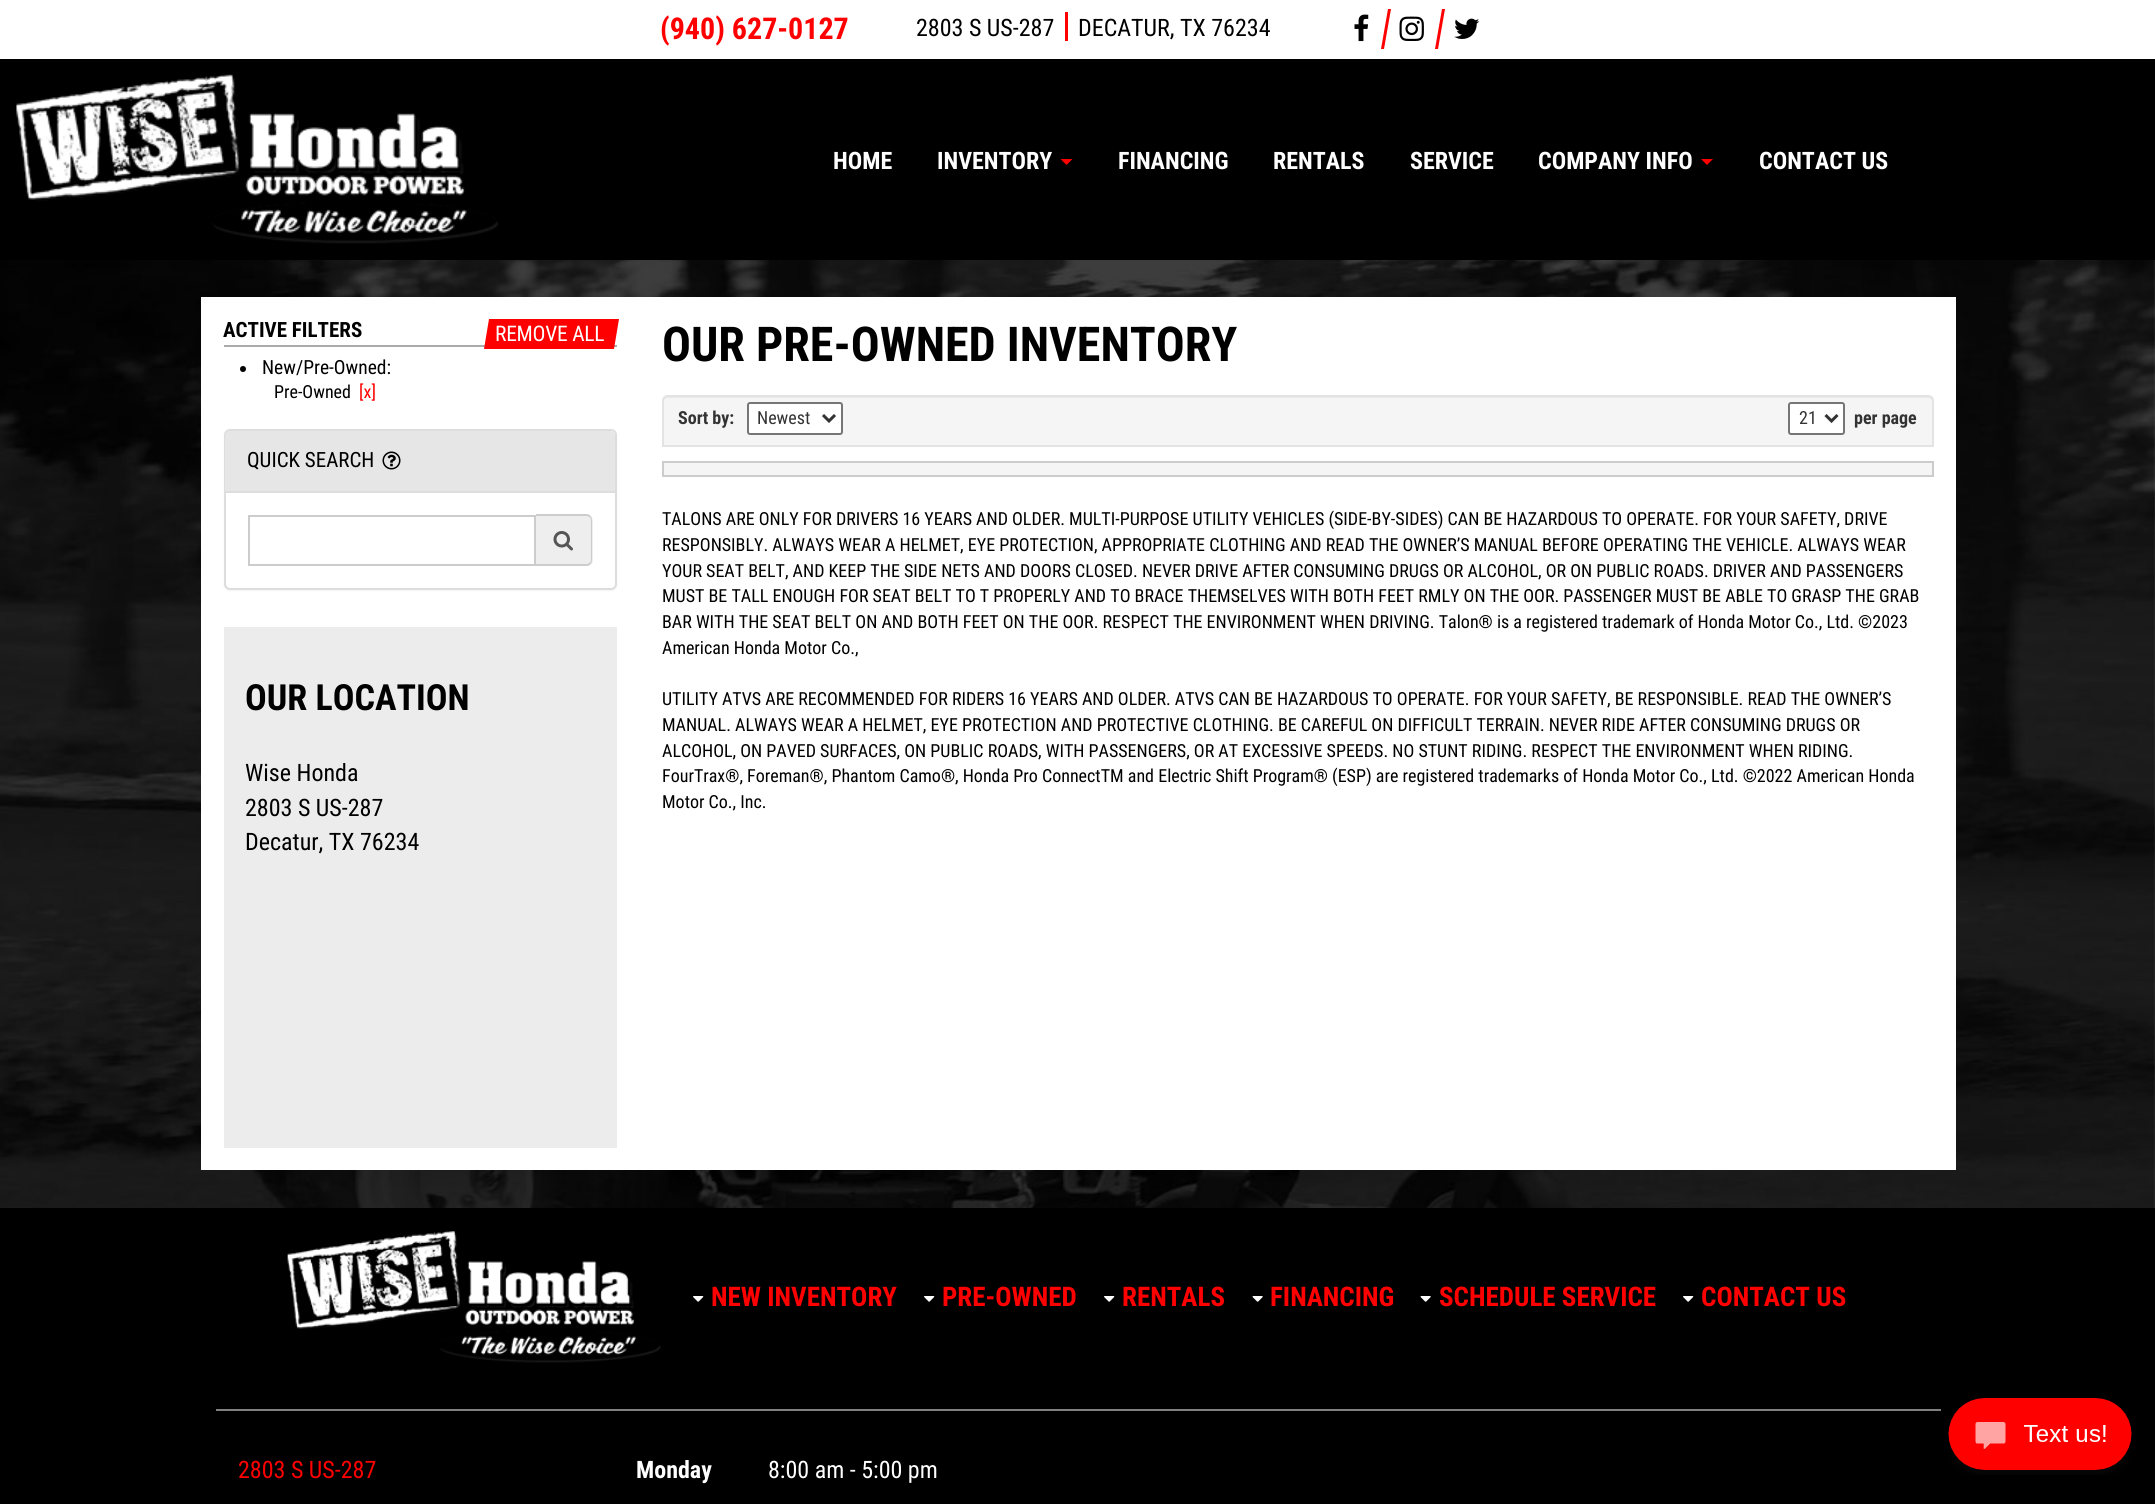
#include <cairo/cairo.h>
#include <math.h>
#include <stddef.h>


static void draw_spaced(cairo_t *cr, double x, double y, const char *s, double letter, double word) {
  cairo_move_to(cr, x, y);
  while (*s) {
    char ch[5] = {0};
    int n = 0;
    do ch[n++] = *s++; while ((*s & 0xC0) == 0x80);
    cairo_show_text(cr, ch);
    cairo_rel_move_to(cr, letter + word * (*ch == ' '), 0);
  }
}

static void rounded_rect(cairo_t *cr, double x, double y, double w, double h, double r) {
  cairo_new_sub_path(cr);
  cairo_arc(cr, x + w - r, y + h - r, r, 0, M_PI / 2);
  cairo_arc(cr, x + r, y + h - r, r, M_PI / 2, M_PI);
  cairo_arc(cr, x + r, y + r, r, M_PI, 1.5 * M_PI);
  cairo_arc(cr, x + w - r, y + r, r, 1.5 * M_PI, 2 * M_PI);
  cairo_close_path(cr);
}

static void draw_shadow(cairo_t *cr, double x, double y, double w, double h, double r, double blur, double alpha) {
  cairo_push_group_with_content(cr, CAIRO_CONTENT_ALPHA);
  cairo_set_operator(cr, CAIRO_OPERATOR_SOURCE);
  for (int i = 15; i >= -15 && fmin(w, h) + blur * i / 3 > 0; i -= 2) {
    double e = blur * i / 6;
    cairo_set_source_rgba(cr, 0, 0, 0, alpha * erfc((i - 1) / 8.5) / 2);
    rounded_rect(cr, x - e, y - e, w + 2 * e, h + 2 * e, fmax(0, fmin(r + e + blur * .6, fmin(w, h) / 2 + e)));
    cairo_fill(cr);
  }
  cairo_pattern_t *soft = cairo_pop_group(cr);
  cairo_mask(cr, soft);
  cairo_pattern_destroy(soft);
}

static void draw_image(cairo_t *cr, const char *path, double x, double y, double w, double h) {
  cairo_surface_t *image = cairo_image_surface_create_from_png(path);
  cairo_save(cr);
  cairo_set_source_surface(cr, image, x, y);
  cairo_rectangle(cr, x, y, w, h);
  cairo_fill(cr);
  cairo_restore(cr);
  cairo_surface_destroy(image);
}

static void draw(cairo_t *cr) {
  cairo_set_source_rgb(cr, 1, 1, 1);
  cairo_paint(cr);
  draw_image(cr, "images/1.png", 0, 260, 2155, 948);
  cairo_set_source_rgb(cr, 0, 0, 0);
  cairo_rectangle(cr, 0, 59, 2155, 201);
  cairo_fill(cr);
  cairo_set_source_rgb(cr, 1, 0, 0);
  cairo_rectangle(cr, 1065, 12, 3, 29);
  cairo_fill(cr);
  draw_image(cr, "images/2.png", 1354, 14, 15, 28);
  cairo_new_path(cr);
  cairo_move_to(cr, 1388, 9);
  cairo_line_to(cr, 1391, 9);
  cairo_line_to(cr, 1384, 49);
  cairo_line_to(cr, 1381, 49);
  cairo_close_path(cr);
  cairo_fill(cr);
  draw_image(cr, "images/3.png", 1399, 16, 25, 25);
  cairo_new_path(cr);
  cairo_move_to(cr, 1442, 9);
  cairo_line_to(cr, 1445, 9);
  cairo_line_to(cr, 1438, 49);
  cairo_line_to(cr, 1435, 49);
  cairo_close_path(cr);
  cairo_fill(cr);
  draw_image(cr, "images/4.png", 1454, 18, 26, 21);
  draw_image(cr, "images/5.png", 16, 74, 482, 170);
  cairo_new_path(cr);
  cairo_move_to(cr, 1060.5, 159);
  cairo_line_to(cr, 1072.5, 159);
  cairo_line_to(cr, 1066.5, 165);
  cairo_close_path(cr);
  cairo_fill(cr);
  cairo_new_path(cr);
  cairo_move_to(cr, 1701, 159);
  cairo_line_to(cr, 1713, 159);
  cairo_line_to(cr, 1707, 165);
  cairo_close_path(cr);
  cairo_fill(cr);
  cairo_set_source_rgb(cr, 1, 1, 1);
  cairo_rectangle(cr, 201, 297, 1755, 873);
  cairo_fill(cr);
  cairo_set_source_rgb(cr, 170 / 255.0, 170 / 255.0, 170 / 255.0);
  cairo_rectangle(cr, 224, 345, 393, 2);
  cairo_fill(cr);
  cairo_set_source_rgb(cr, 1, 0, 0);
  cairo_new_path(cr);
  cairo_move_to(cr, 489, 319);
  cairo_line_to(cr, 619, 319);
  cairo_line_to(cr, 614, 349);
  cairo_line_to(cr, 484, 349);
  cairo_close_path(cr);
  cairo_fill(cr);
  cairo_set_source_rgb(cr, 0, 0, 0);
  cairo_arc(cr, 243, 369, 3, 0, 2 * M_PI);
  cairo_fill(cr);
  cairo_set_source_rgb(cr, 0, 0, 0);
  draw_shadow(cr, 224, 431, 393, 160, 6, 1, 0.05);
  cairo_set_source_rgb(cr, 1, 1, 1);
  rounded_rect(cr, 225, 430, 391, 159, 5);
  cairo_fill_preserve(cr);
  cairo_set_source_rgb(cr, 221 / 255.0, 221 / 255.0, 221 / 255.0);
  cairo_stroke(cr);
  cairo_set_source_rgb(cr, 230 / 255.0, 230 / 255.0, 230 / 255.0);
  cairo_new_path(cr);
  cairo_move_to(cr, 230, 431);
  cairo_line_to(cr, 610, 431);
  cairo_curve_to(cr, 613, 431, 615, 433, 615, 436);
  cairo_line_to(cr, 615, 492);
  cairo_line_to(cr, 225, 492);
  cairo_line_to(cr, 225, 436);
  cairo_curve_to(cr, 225, 433, 227, 431, 230, 431);
  cairo_close_path(cr);
  cairo_fill(cr);
  cairo_set_source_rgb(cr, 221 / 255.0, 221 / 255.0, 221 / 255.0);
  cairo_rectangle(cr, 225, 491, 390, 2);
  cairo_fill(cr);
  draw_image(cr, "images/6.png", 382, 451, 19, 19);
  cairo_rectangle(cr, 249, 516, 286, 49);
  cairo_set_source_rgb(cr, 204 / 255.0, 204 / 255.0, 204 / 255.0);
  cairo_stroke(cr);
  cairo_set_source_rgb(cr, 238 / 255.0, 238 / 255.0, 238 / 255.0);
  cairo_new_path(cr);
  cairo_move_to(cr, 536, 515);
  cairo_line_to(cr, 587, 515);
  cairo_curve_to(cr, 590.5, 515, 593, 517.5, 593, 521);
  cairo_line_to(cr, 593, 560);
  cairo_curve_to(cr, 593, 563.5, 590.5, 566, 587, 566);
  cairo_line_to(cr, 536, 566);
  cairo_close_path(cr);
  cairo_fill(cr);
  cairo_set_source_rgb(cr, 204 / 255.0, 204 / 255.0, 204 / 255.0);
  cairo_set_fill_rule(cr, CAIRO_FILL_RULE_EVEN_ODD);
  cairo_new_path(cr);
  cairo_move_to(cr, 536, 514);
  cairo_line_to(cr, 586, 514);
  cairo_curve_to(cr, 590, 514, 592, 517, 592, 520);
  cairo_line_to(cr, 592, 560);
  cairo_curve_to(cr, 592, 563, 590, 566, 586, 566);
  cairo_line_to(cr, 536, 566);
  cairo_close_path(cr);
  cairo_move_to(cr, 536, 516);
  cairo_line_to(cr, 586, 516);
  cairo_curve_to(cr, 589, 516, 591, 518, 591, 520);
  cairo_line_to(cr, 591, 560);
  cairo_curve_to(cr, 591, 562, 589, 564, 586, 564);
  cairo_line_to(cr, 536, 564);
  cairo_close_path(cr);
  cairo_fill(cr);
  draw_image(cr, "images/7.png", 553, 531, 20, 20);
  cairo_set_source_rgb(cr, 236 / 255.0, 236 / 255.0, 236 / 255.0);
  cairo_rectangle(cr, 224, 627, 393, 521);
  cairo_fill(cr);
  cairo_set_source_rgb(cr, 245 / 255.0, 245 / 255.0, 245 / 255.0);
  cairo_new_path(cr);
  cairo_move_to(cr, 668, 395);
  cairo_line_to(cr, 1928, 395);
  cairo_curve_to(cr, 1931.5, 395, 1934, 397.5, 1934, 401);
  cairo_line_to(cr, 1934, 447);
  cairo_line_to(cr, 662, 447);
  cairo_line_to(cr, 662, 401);
  cairo_curve_to(cr, 662, 397.5, 664.5, 395, 668, 395);
  cairo_close_path(cr);
  cairo_fill(cr);
  cairo_set_source_rgb(cr, 233 / 255.0, 233 / 255.0, 233 / 255.0);
  cairo_set_fill_rule(cr, CAIRO_FILL_RULE_WINDING);
  cairo_new_path(cr);
  cairo_move_to(cr, 668, 398);
  cairo_line_to(cr, 1928, 398);
  cairo_curve_to(cr, 1930, 398, 1932, 400, 1932, 402);
  cairo_curve_to(cr, 1932, 399, 1930, 396, 1927, 396);
  cairo_line_to(cr, 668, 396);
  cairo_curve_to(cr, 665, 396, 663, 399, 663, 402);
  cairo_curve_to(cr, 663, 400, 665, 398, 668, 398);
  cairo_close_path(cr);
  cairo_fill(cr);
  cairo_new_path(cr);
  cairo_move_to(cr, 668, 396);
  cairo_line_to(cr, 1928, 396);
  cairo_curve_to(cr, 1931, 396, 1933, 398, 1933, 401);
  cairo_line_to(cr, 1933, 446);
  cairo_line_to(cr, 663, 446);
  cairo_line_to(cr, 663, 401);
  cairo_curve_to(cr, 663, 398, 665, 396, 668, 396);
  cairo_close_path(cr);
  cairo_set_source_rgb(cr, 227 / 255.0, 227 / 255.0, 227 / 255.0);
  cairo_stroke(cr);
  cairo_set_source_rgb(cr, 1, 1, 1);
  rounded_rect(cr, 748, 403, 94, 31, 2);
  cairo_fill_preserve(cr);
  cairo_set_source_rgb(cr, 118 / 255.0, 118 / 255.0, 118 / 255.0);
  cairo_stroke(cr);
  cairo_new_path(cr);
  cairo_move_to(cr, 823, 415);
  cairo_line_to(cr, 829, 421);
  cairo_line_to(cr, 835, 415);
  cairo_set_source_rgb(cr, 51 / 255.0, 51 / 255.0, 51 / 255.0);
  cairo_set_line_width(cr, 3);
  cairo_stroke(cr);
  cairo_set_source_rgb(cr, 1, 1, 1);
  rounded_rect(cr, 1789, 403, 55, 31, 2);
  cairo_fill_preserve(cr);
  cairo_set_source_rgb(cr, 118 / 255.0, 118 / 255.0, 118 / 255.0);
  cairo_set_line_width(cr, 2);
  cairo_stroke(cr);
  cairo_new_path(cr);
  cairo_move_to(cr, 1825.5, 415);
  cairo_line_to(cr, 1831.5, 421);
  cairo_line_to(cr, 1837.5, 415);
  cairo_set_source_rgb(cr, 51 / 255.0, 51 / 255.0, 51 / 255.0);
  cairo_set_line_width(cr, 3);
  cairo_stroke(cr);
  cairo_set_source_rgb(cr, 245 / 255.0, 245 / 255.0, 245 / 255.0);
  cairo_rectangle(cr, 663, 462, 1270, 14);
  cairo_fill_preserve(cr);
  cairo_set_source_rgb(cr, 204 / 255.0, 204 / 255.0, 204 / 255.0);
  cairo_set_line_width(cr, 2);
  cairo_stroke(cr);
  cairo_set_source_rgb(cr, 0, 0, 0);
  cairo_rectangle(cr, 0, 1208, 2155, 296);
  cairo_fill(cr);
  draw_image(cr, "images/8.png", 287, 1231, 374, 132);
  draw_image(cr, "images/9.png", 693, 1296, 11, 6);
  draw_image(cr, "images/9.png", 924, 1296, 11, 6);
  draw_image(cr, "images/9.png", 1104, 1296, 11, 6);
  draw_image(cr, "images/10.png", 1252, 1296, 11, 6);
  draw_image(cr, "images/10.png", 1420, 1296, 11, 6);
  draw_image(cr, "images/9.png", 1683, 1296, 11, 6);
  cairo_set_source_rgb(cr, 128 / 255.0, 128 / 255.0, 128 / 255.0);
  cairo_rectangle(cr, 216, 1409, 1725, 2);
  cairo_fill(cr);
  draw_image(cr, "images/11.png", 1948, 1398, 184, 77);
  cairo_select_font_face(cr, "Roboto Condensed", CAIRO_FONT_SLANT_NORMAL, CAIRO_FONT_WEIGHT_BOLD);
  cairo_set_font_size(cr, 30);
  cairo_set_source_rgb(cr, 1, 0, 0);
  cairo_move_to(cr, 660, 39);
  cairo_show_text(cr, "(940) 627-0127");
  cairo_select_font_face(cr, "Roboto Condensed", CAIRO_FONT_SLANT_NORMAL, CAIRO_FONT_WEIGHT_NORMAL);
  cairo_set_font_size(cr, 24);
  cairo_set_source_rgb(cr, 0, 0, 0);
  cairo_move_to(cr, 916, 36);
  cairo_show_text(cr, "2803 S US-287");
  cairo_move_to(cr, 1078, 36);
  cairo_show_text(cr, "DECATUR, TX 76234");
  cairo_select_font_face(cr, "Roboto Condensed", CAIRO_FONT_SLANT_NORMAL, CAIRO_FONT_WEIGHT_BOLD);
  cairo_set_source_rgb(cr, 1, 1, 1);
  cairo_move_to(cr, 833, 169);
  cairo_show_text(cr, "HOME");
  cairo_move_to(cr, 937, 169);
  cairo_show_text(cr, "INVENTORY");
  cairo_move_to(cr, 1118, 169);
  cairo_show_text(cr, "FINANCING");
  cairo_move_to(cr, 1273, 169);
  cairo_show_text(cr, "RENTALS");
  cairo_move_to(cr, 1410, 169);
  cairo_show_text(cr, "SERVICE");
  cairo_move_to(cr, 1538, 169);
  cairo_show_text(cr, "COMPANY INFO");
  cairo_move_to(cr, 1759, 169);
  cairo_show_text(cr, "CONTACT US");
  cairo_set_font_size(cr, 21);
  cairo_set_source_rgb(cr, 0, 0, 0);
  cairo_move_to(cr, 223, 337);
  cairo_show_text(cr, "ACTIVE FILTERS");
  cairo_select_font_face(cr, "Roboto Condensed", CAIRO_FONT_SLANT_NORMAL, CAIRO_FONT_WEIGHT_NORMAL);
  cairo_set_font_size(cr, 21.5);
  cairo_set_source_rgb(cr, 1, 1, 1);
  draw_spaced(cr, 495, 341, "REMOVE ALL", -0.25, 0);
  cairo_set_font_size(cr, 19.5);
  cairo_set_source_rgb(cr, 0, 0, 0);
  cairo_move_to(cr, 262, 374);
  cairo_show_text(cr, "New/Pre-Owned:");
  cairo_set_font_size(cr, 18);
  cairo_move_to(cr, 274, 398);
  cairo_show_text(cr, "Pre-Owned");
  cairo_set_source_rgb(cr, 1, 0, 0);
  cairo_move_to(cr, 359, 398);
  cairo_show_text(cr, "[x]");
  cairo_set_font_size(cr, 21);
  cairo_set_source_rgb(cr, 0, 0, 0);
  cairo_move_to(cr, 247, 467);
  cairo_show_text(cr, "QUICK SEARCH");
  cairo_select_font_face(cr, "Roboto Condensed", CAIRO_FONT_SLANT_NORMAL, CAIRO_FONT_WEIGHT_BOLD);
  cairo_set_font_size(cr, 36);
  cairo_move_to(cr, 245, 710);
  cairo_show_text(cr, "OUR LOCATION");
  cairo_select_font_face(cr, "Roboto Condensed", CAIRO_FONT_SLANT_NORMAL, CAIRO_FONT_WEIGHT_NORMAL);
  cairo_set_font_size(cr, 24);
  cairo_move_to(cr, 245, 781);
  cairo_show_text(cr, "Wise Honda");
  cairo_move_to(cr, 245, 816);
  cairo_show_text(cr, "2803 S US-287");
  cairo_move_to(cr, 245, 850);
  cairo_show_text(cr, "Decatur, TX 76234");
  cairo_select_font_face(cr, "Roboto Condensed", CAIRO_FONT_SLANT_NORMAL, CAIRO_FONT_WEIGHT_BOLD);
  cairo_set_font_size(cr, 48);
  cairo_move_to(cr, 662, 361);
  cairo_show_text(cr, "OUR PRE-OWNED INVENTORY");
  cairo_set_font_size(cr, 18);
  cairo_set_source_rgb(cr, 51 / 255.0, 51 / 255.0, 51 / 255.0);
  cairo_move_to(cr, 678, 424);
  cairo_show_text(cr, "Sort by:");
  cairo_select_font_face(cr, "Roboto Condensed", CAIRO_FONT_SLANT_NORMAL, CAIRO_FONT_WEIGHT_NORMAL);
  cairo_move_to(cr, 757, 424);
  cairo_show_text(cr, "Newest");
  cairo_move_to(cr, 1799, 424);
  cairo_show_text(cr, "21");
  cairo_select_font_face(cr, "Roboto Condensed", CAIRO_FONT_SLANT_NORMAL, CAIRO_FONT_WEIGHT_BOLD);
  cairo_move_to(cr, 1854, 424);
  cairo_show_text(cr, "per page");
  cairo_select_font_face(cr, "Roboto Condensed", CAIRO_FONT_SLANT_NORMAL, CAIRO_FONT_WEIGHT_NORMAL);
  cairo_set_source_rgb(cr, 0, 0, 0);
  cairo_move_to(cr, 662, 525);
  cairo_show_text(cr, "TALONS ARE ONLY FOR DRIVERS 16 YEARS AND OLDER. MULTI-PURPOSE UTILITY VEHICLES (SIDE-BY-SIDES) CAN BE HAZARDOUS TO OPERATE. FOR YOUR SAFETY, DRIVE");
  cairo_move_to(cr, 662, 551);
  cairo_show_text(cr, "RESPONSIBLY. ALWAYS WEAR A HELMET, EYE PROTECTION, APPROPRIATE CLOTHING AND READ THE OWNER’S MANUAL BEFORE OPERATING THE VEHICLE. ALWAYS WEAR");
  cairo_move_to(cr, 662, 577);
  cairo_show_text(cr, "YOUR SEAT BELT, AND KEEP THE SIDE NETS AND DOORS CLOSED. NEVER DRIVE AFTER CONSUMING DRUGS OR ALCOHOL, OR ON PUBLIC ROADS. DRIVER AND PASSENGERS");
  cairo_move_to(cr, 662, 602);
  cairo_show_text(cr, "MUST BE TALL ENOUGH FOR SEAT BELT TO T PROPERLY AND TO BRACE THEMSELVES WITH BOTH FEET RMLY ON THE OOR. PASSENGER MUST BE ABLE TO GRASP THE GRAB");
  cairo_move_to(cr, 662, 628);
  cairo_show_text(cr, "BAR WITH THE SEAT BELT ON AND BOTH FEET ON THE OOR. RESPECT THE ENVIRONMENT WHEN DRIVING. Talon® is a registered trademark of Honda Motor Co., Ltd. ©2023");
  cairo_move_to(cr, 662, 654);
  cairo_show_text(cr, "American Honda Motor Co.,");
  cairo_move_to(cr, 662, 705);
  cairo_show_text(cr, "UTILITY ATVS ARE RECOMMENDED FOR RIDERS 16 YEARS AND OLDER. ATVS CAN BE HAZARDOUS TO OPERATE. FOR YOUR SAFETY, BE RESPONSIBLE. READ THE OWNER’S");
  cairo_move_to(cr, 662, 731);
  cairo_show_text(cr, "MANUAL. ALWAYS WEAR A HELMET, EYE PROTECTION AND PROTECTIVE CLOTHING. BE CAREFUL ON DIFFICULT TERRAIN. NEVER RIDE AFTER CONSUMING DRUGS OR");
  cairo_move_to(cr, 662, 757);
  cairo_show_text(cr, "ALCOHOL, ON PAVED SURFACES, ON PUBLIC ROADS, WITH PASSENGERS, OR AT EXCESSIVE SPEEDS. NO STUNT RIDING. RESPECT THE ENVIRONMENT WHEN RIDING.");
  cairo_move_to(cr, 662, 782);
  cairo_show_text(cr, "FourTrax®, Foreman®, Phantom Camo®, Honda Pro ConnectTM and Electric Shift Program® (ESP) are registered trademarks of Honda Motor Co., Ltd. ©2022 American Honda");
  cairo_move_to(cr, 662, 808);
  cairo_show_text(cr, "Motor Co., Inc.");
  cairo_select_font_face(cr, "Roboto Condensed", CAIRO_FONT_SLANT_NORMAL, CAIRO_FONT_WEIGHT_BOLD);
  cairo_set_font_size(cr, 27);
  cairo_set_source_rgb(cr, 1, 0, 0);
  cairo_move_to(cr, 711, 1306);
  cairo_show_text(cr, "NEW INVENTORY");
  cairo_move_to(cr, 942, 1306);
  cairo_show_text(cr, "PRE-OWNED");
  cairo_move_to(cr, 1122, 1306);
  cairo_show_text(cr, "RENTALS");
  cairo_move_to(cr, 1270, 1306);
  cairo_show_text(cr, "FINANCING");
  cairo_move_to(cr, 1439, 1306);
  cairo_show_text(cr, "SCHEDULE SERVICE");
  cairo_move_to(cr, 1701, 1306);
  cairo_show_text(cr, "CONTACT US");
  cairo_select_font_face(cr, "Roboto Condensed", CAIRO_FONT_SLANT_NORMAL, CAIRO_FONT_WEIGHT_NORMAL);
  cairo_set_font_size(cr, 24);
  cairo_move_to(cr, 238, 1478);
  cairo_show_text(cr, "2803 S US-287");
  cairo_select_font_face(cr, "Roboto Condensed", CAIRO_FONT_SLANT_NORMAL, CAIRO_FONT_WEIGHT_BOLD);
  cairo_set_source_rgb(cr, 1, 1, 1);
  cairo_move_to(cr, 636, 1478);
  cairo_show_text(cr, "Monday");
  cairo_select_font_face(cr, "Roboto Condensed", CAIRO_FONT_SLANT_NORMAL, CAIRO_FONT_WEIGHT_NORMAL);
  cairo_move_to(cr, 768, 1478);
  cairo_show_text(cr, "8:00 am - 5:00 pm");
}

int main(void) {
  cairo_surface_t *surface = cairo_image_surface_create(CAIRO_FORMAT_RGB24, 2155, 1504);
  cairo_t *cr = cairo_create(surface);
  cairo_font_options_t *options = cairo_font_options_create();
  cairo_font_options_set_hint_metrics(options, CAIRO_HINT_METRICS_OFF);
  cairo_font_options_set_hint_style(options, CAIRO_HINT_STYLE_NONE);
  cairo_set_font_options(cr, options);
  cairo_set_miter_limit(cr, 4);
  draw(cr);
  cairo_surface_write_to_png(surface, "out.png");
  cairo_font_options_destroy(options);
  cairo_destroy(cr);
  cairo_surface_destroy(surface);
  return 0;
}
